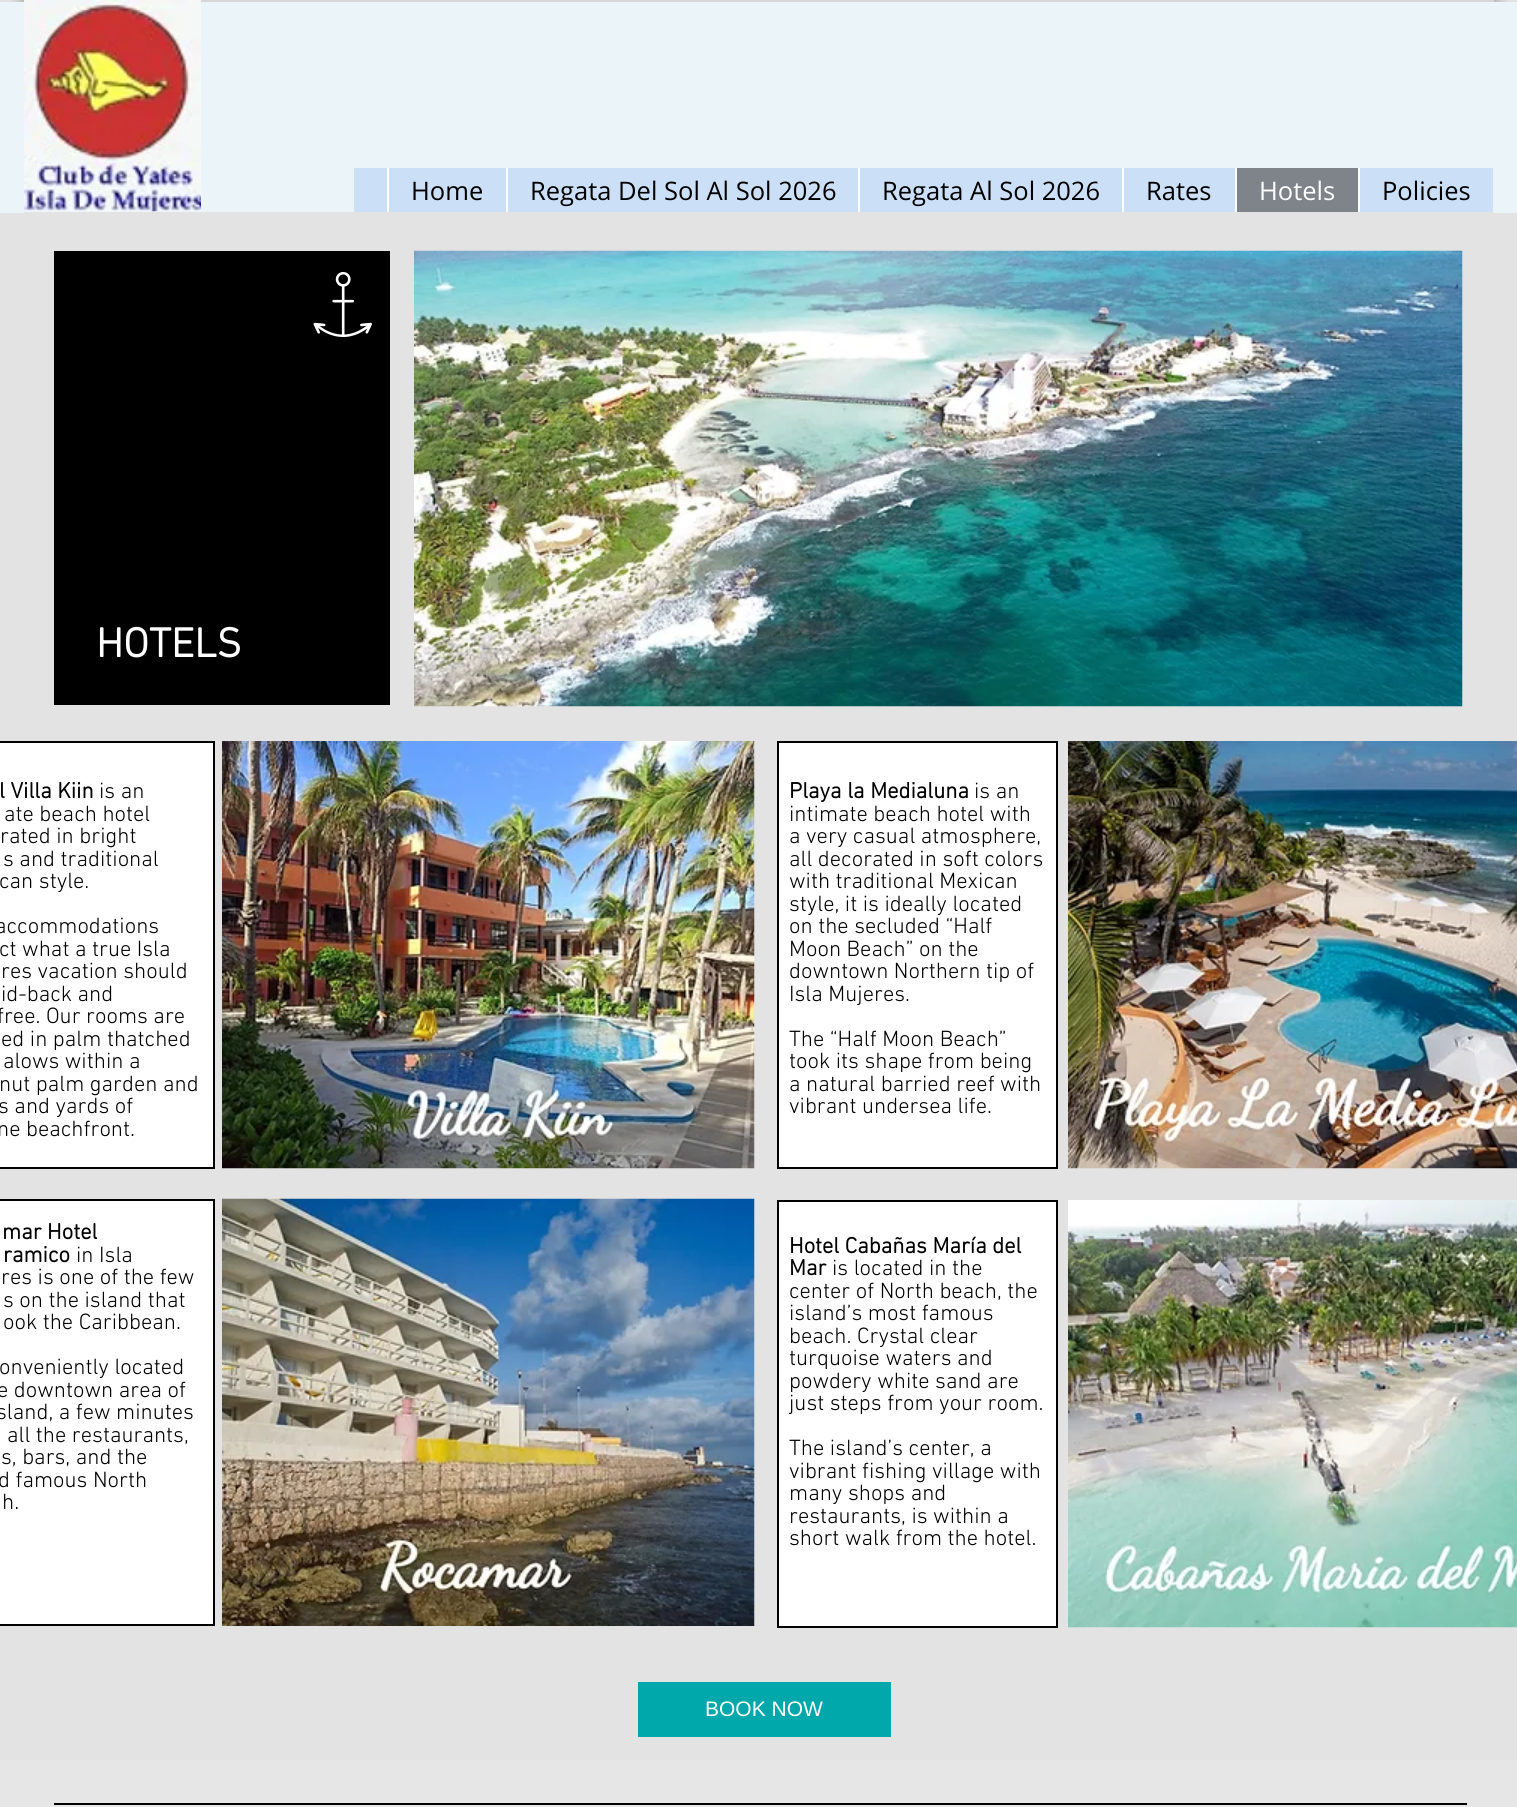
#include <cairo/cairo.h>
#include <math.h>
#include <stddef.h>


static void draw_image(cairo_t *cr, const char *path, double x, double y, double w, double h) {
  cairo_surface_t *image = cairo_image_surface_create_from_png(path);
  cairo_save(cr);
  cairo_set_source_surface(cr, image, x, y);
  cairo_rectangle(cr, x, y, w, h);
  cairo_fill(cr);
  cairo_restore(cr);
  cairo_surface_destroy(image);
}

static void draw(cairo_t *cr) {
  cairo_set_source_rgb(cr, 227 / 255.0, 227 / 255.0, 227 / 255.0);
  cairo_paint(cr);
  draw_image(cr, "images/1.png", 10, 0, 14, 2);
  cairo_set_source_rgb(cr, 214 / 255.0, 214 / 255.0, 214 / 255.0);
  cairo_rectangle(cr, 201, 0, 1293, 2);
  cairo_fill(cr);
  draw_image(cr, "images/2.png", 1494, 0, 14, 2);
  cairo_set_source_rgb(cr, 235 / 255.0, 245 / 255.0, 249 / 255.0);
  cairo_rectangle(cr, 0, 2, 1517, 211);
  cairo_fill(cr);
  draw_image(cr, "images/3.png", 24, 0, 177, 212);
  cairo_set_source_rgb(cr, 203 / 255.0, 223 / 255.0, 247 / 255.0);
  cairo_rectangle(cr, 354, 168, 1139, 44);
  cairo_fill(cr);
  cairo_set_source_rgb(cr, 1, 1, 1);
  cairo_rectangle(cr, 387, 168, 2, 45);
  cairo_fill(cr);
  cairo_rectangle(cr, 506, 168, 2, 45);
  cairo_fill(cr);
  cairo_rectangle(cr, 858, 168, 2, 45);
  cairo_fill(cr);
  cairo_rectangle(cr, 1122, 168, 2, 45);
  cairo_fill(cr);
  cairo_set_source_rgb(cr, 127 / 255.0, 132 / 255.0, 138 / 255.0);
  cairo_rectangle(cr, 1237, 168, 121, 44);
  cairo_fill(cr);
  cairo_set_source_rgb(cr, 1, 1, 1);
  cairo_rectangle(cr, 1235, 168, 2, 45);
  cairo_fill(cr);
  cairo_rectangle(cr, 1358, 168, 2, 45);
  cairo_fill(cr);
  cairo_set_source_rgb(cr, 227 / 255.0, 227 / 255.0, 227 / 255.0);
  cairo_rectangle(cr, 24, 212, 1470, 1);
  cairo_fill(cr);
  cairo_set_source_rgb(cr, 0, 0, 0);
  cairo_rectangle(cr, 54, 251, 336, 454);
  cairo_fill(cr);
  draw_image(cr, "images/4.png", 313, 272, 59, 65);
  draw_image(cr, "images/5.png", 414, 250, 1049, 457);
  cairo_set_source_rgb(cr, 1, 1, 1);
  cairo_rectangle(cr, -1, 742, 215, 426);
  cairo_fill_preserve(cr);
  cairo_set_source_rgb(cr, 0, 0, 0);
  cairo_stroke(cr);
  draw_image(cr, "images/6.png", 222, 741, 533, 428);
  cairo_set_source_rgb(cr, 1, 1, 1);
  cairo_rectangle(cr, 778, 742, 279, 426);
  cairo_fill_preserve(cr);
  cairo_set_source_rgb(cr, 0, 0, 0);
  cairo_stroke(cr);
  draw_image(cr, "images/7.png", 1068, 741, 449, 428);
  cairo_set_source_rgb(cr, 1, 1, 1);
  cairo_rectangle(cr, -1, 1200, 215, 425);
  cairo_fill_preserve(cr);
  cairo_set_source_rgb(cr, 0, 0, 0);
  cairo_stroke(cr);
  draw_image(cr, "images/8.png", 222, 1198, 533, 428);
  cairo_set_source_rgb(cr, 1, 1, 1);
  cairo_rectangle(cr, 778, 1201, 279, 426);
  cairo_fill_preserve(cr);
  cairo_set_source_rgb(cr, 0, 0, 0);
  cairo_stroke(cr);
  draw_image(cr, "images/9.png", 1068, 1200, 449, 428);
  cairo_set_source_rgb(cr, 0, 168 / 255.0, 171 / 255.0);
  cairo_rectangle(cr, 638, 1682, 253, 55);
  cairo_fill(cr);
  cairo_set_source_rgb(cr, 230 / 255.0, 230 / 255.0, 230 / 255.0);
  cairo_rectangle(cr, 0, 1760, 1517, 47);
  cairo_fill(cr);
  cairo_set_source_rgb(cr, 0, 0, 0);
  cairo_rectangle(cr, 54, 1803, 1413, 2);
  cairo_fill(cr);
  cairo_select_font_face(cr, "Open Sans", CAIRO_FONT_SLANT_NORMAL, CAIRO_FONT_WEIGHT_NORMAL);
  cairo_set_font_size(cr, 25.5);
  cairo_move_to(cr, 411, 200);
  cairo_show_text(cr, "Home");
  cairo_move_to(cr, 530, 200);
  cairo_show_text(cr, "Regata Del Sol Al Sol 2026");
  cairo_move_to(cr, 882, 200);
  cairo_show_text(cr, "Regata Al Sol 2026");
  cairo_move_to(cr, 1146, 200);
  cairo_show_text(cr, "Rates");
  cairo_set_source_rgb(cr, 1, 1, 1);
  cairo_move_to(cr, 1259, 200);
  cairo_show_text(cr, "Hotels");
  cairo_set_source_rgb(cr, 0, 0, 0);
  cairo_move_to(cr, 1382, 200);
  cairo_show_text(cr, "Policies");
  cairo_select_font_face(cr, "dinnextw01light", CAIRO_FONT_SLANT_NORMAL, CAIRO_FONT_WEIGHT_BOLD);
  cairo_set_font_size(cr, 42);
  cairo_set_source_rgb(cr, 1, 1, 1);
  cairo_move_to(cr, 96, 657);
  cairo_show_text(cr, "HOTELS");
  cairo_set_font_size(cr, 22.5);
  cairo_set_source_rgb(cr, 0, 0, 0);
  cairo_move_to(cr, -1, 798);
  cairo_show_text(cr, "l Villa Kiin");
  cairo_select_font_face(cr, "dinnextw01light Light", CAIRO_FONT_SLANT_NORMAL, CAIRO_FONT_WEIGHT_NORMAL);
  cairo_move_to(cr, 99, 798);
  cairo_show_text(cr, "is an");
  cairo_move_to(cr, 4, 821);
  cairo_show_text(cr, "ate beach hotel");
  cairo_move_to(cr, 0, 843);
  cairo_show_text(cr, "rated in bright");
  cairo_move_to(cr, 3, 866);
  cairo_show_text(cr, "s and traditional");
  cairo_move_to(cr, -1, 888);
  cairo_show_text(cr, "can style.");
  cairo_move_to(cr, -5, 933);
  cairo_show_text(cr, "accommodations");
  cairo_move_to(cr, -1, 956);
  cairo_show_text(cr, "ct what a true Isla");
  cairo_move_to(cr, 1, 978);
  cairo_show_text(cr, "res vacation should");
  cairo_move_to(cr, 1, 1001);
  cairo_show_text(cr, "id-back and");
  cairo_move_to(cr, -3, 1023);
  cairo_show_text(cr, "free. Our rooms are");
  cairo_move_to(cr, 1, 1046);
  cairo_show_text(cr, "ed in palm thatched");
  cairo_move_to(cr, 3, 1068);
  cairo_show_text(cr, "alows within a");
  cairo_move_to(cr, -1, 1091);
  cairo_show_text(cr, "nut palm garden and");
  cairo_move_to(cr, -2, 1113);
  cairo_show_text(cr, "s and yards of");
  cairo_move_to(cr, -3, 1136);
  cairo_show_text(cr, "ne beachfront.");
  cairo_select_font_face(cr, "dinnextw01light", CAIRO_FONT_SLANT_NORMAL, CAIRO_FONT_WEIGHT_BOLD);
  cairo_move_to(cr, 789, 798);
  cairo_show_text(cr, "Playa la Medialuna");
  cairo_select_font_face(cr, "dinnextw01light Light", CAIRO_FONT_SLANT_NORMAL, CAIRO_FONT_WEIGHT_NORMAL);
  cairo_move_to(cr, 974, 798);
  cairo_show_text(cr, "is an");
  cairo_move_to(cr, 789, 821);
  cairo_show_text(cr, "intimate beach hotel with");
  cairo_move_to(cr, 789, 843);
  cairo_show_text(cr, "a very casual atmosphere,");
  cairo_move_to(cr, 789, 866);
  cairo_show_text(cr, "all decorated in soft colors");
  cairo_move_to(cr, 789, 888);
  cairo_show_text(cr, "with traditional Mexican");
  cairo_move_to(cr, 789, 911);
  cairo_show_text(cr, "style, it is ideally located");
  cairo_move_to(cr, 789, 933);
  cairo_show_text(cr, "on the secluded “Half");
  cairo_move_to(cr, 789, 956);
  cairo_show_text(cr, "Moon Beach” on the");
  cairo_move_to(cr, 789, 978);
  cairo_show_text(cr, "downtown Northern tip of");
  cairo_move_to(cr, 789, 1001);
  cairo_show_text(cr, "Isla Mujeres.");
  cairo_move_to(cr, 789, 1046);
  cairo_show_text(cr, "The “Half Moon Beach”");
  cairo_move_to(cr, 789, 1068);
  cairo_show_text(cr, "took its shape from being");
  cairo_move_to(cr, 789, 1091);
  cairo_show_text(cr, "a natural barried reef with");
  cairo_move_to(cr, 789, 1113);
  cairo_show_text(cr, "vibrant undersea life.");
  cairo_select_font_face(cr, "dinnextw01light", CAIRO_FONT_SLANT_NORMAL, CAIRO_FONT_WEIGHT_BOLD);
  cairo_move_to(cr, 2, 1239);
  cairo_show_text(cr, "mar Hotel");
  cairo_move_to(cr, 3, 1262);
  cairo_show_text(cr, "ramico");
  cairo_select_font_face(cr, "dinnextw01light Light", CAIRO_FONT_SLANT_NORMAL, CAIRO_FONT_WEIGHT_NORMAL);
  cairo_move_to(cr, 76, 1262);
  cairo_show_text(cr, "in Isla");
  cairo_move_to(cr, 1, 1284);
  cairo_show_text(cr, "res is one of the few");
  cairo_move_to(cr, 3, 1307);
  cairo_show_text(cr, "s on the island that");
  cairo_move_to(cr, 3, 1329);
  cairo_show_text(cr, "ook the Caribbean.");
  cairo_move_to(cr, -1, 1374);
  cairo_show_text(cr, "onveniently located");
  cairo_move_to(cr, -3, 1397);
  cairo_show_text(cr, "e downtown area of");
  cairo_move_to(cr, -4, 1419);
  cairo_show_text(cr, "sland, a few minutes");
  cairo_move_to(cr, 7, 1442);
  cairo_show_text(cr, "all the restaurants,");
  cairo_move_to(cr, 1, 1464);
  cairo_show_text(cr, "s, bars, and the");
  cairo_move_to(cr, -2, 1487);
  cairo_show_text(cr, "d famous North");
  cairo_move_to(cr, 2, 1509);
  cairo_show_text(cr, "h.");
  cairo_select_font_face(cr, "dinnextw01light", CAIRO_FONT_SLANT_NORMAL, CAIRO_FONT_WEIGHT_BOLD);
  cairo_move_to(cr, 789, 1253);
  cairo_show_text(cr, "Hotel Cabañas María del");
  cairo_move_to(cr, 789, 1275);
  cairo_show_text(cr, "Mar");
  cairo_select_font_face(cr, "dinnextw01light Light", CAIRO_FONT_SLANT_NORMAL, CAIRO_FONT_WEIGHT_NORMAL);
  cairo_move_to(cr, 832, 1275);
  cairo_show_text(cr, "is located in the");
  cairo_move_to(cr, 789, 1298);
  cairo_show_text(cr, "center of North beach, the");
  cairo_move_to(cr, 789, 1320);
  cairo_show_text(cr, "island’s most famous");
  cairo_move_to(cr, 789, 1343);
  cairo_show_text(cr, "beach. Crystal clear");
  cairo_move_to(cr, 789, 1365);
  cairo_show_text(cr, "turquoise waters and");
  cairo_move_to(cr, 789, 1388);
  cairo_show_text(cr, "powdery white sand are");
  cairo_move_to(cr, 789, 1410);
  cairo_show_text(cr, "just steps from your room.");
  cairo_move_to(cr, 789, 1455);
  cairo_show_text(cr, "The island’s center, a");
  cairo_move_to(cr, 789, 1478);
  cairo_show_text(cr, "vibrant fishing village with");
  cairo_move_to(cr, 789, 1500);
  cairo_show_text(cr, "many shops and");
  cairo_move_to(cr, 789, 1523);
  cairo_show_text(cr, "restaurants, is within a");
  cairo_move_to(cr, 789, 1545);
  cairo_show_text(cr, "short walk from the hotel.");
  cairo_select_font_face(cr, "Liberation Sans", CAIRO_FONT_SLANT_NORMAL, CAIRO_FONT_WEIGHT_NORMAL);
  cairo_set_font_size(cr, 21);
  cairo_set_source_rgb(cr, 1, 1, 1);
  cairo_move_to(cr, 705, 1716);
  cairo_show_text(cr, "BOOK NOW");
}

int main(void) {
  cairo_surface_t *surface = cairo_image_surface_create(CAIRO_FORMAT_RGB24, 1517, 1807);
  cairo_t *cr = cairo_create(surface);
  cairo_font_options_t *options = cairo_font_options_create();
  cairo_font_options_set_hint_metrics(options, CAIRO_HINT_METRICS_OFF);
  cairo_font_options_set_hint_style(options, CAIRO_HINT_STYLE_NONE);
  cairo_set_font_options(cr, options);
  cairo_set_miter_limit(cr, 4);
  draw(cr);
  cairo_surface_write_to_png(surface, "out.png");
  cairo_font_options_destroy(options);
  cairo_destroy(cr);
  cairo_surface_destroy(surface);
  return 0;
}
